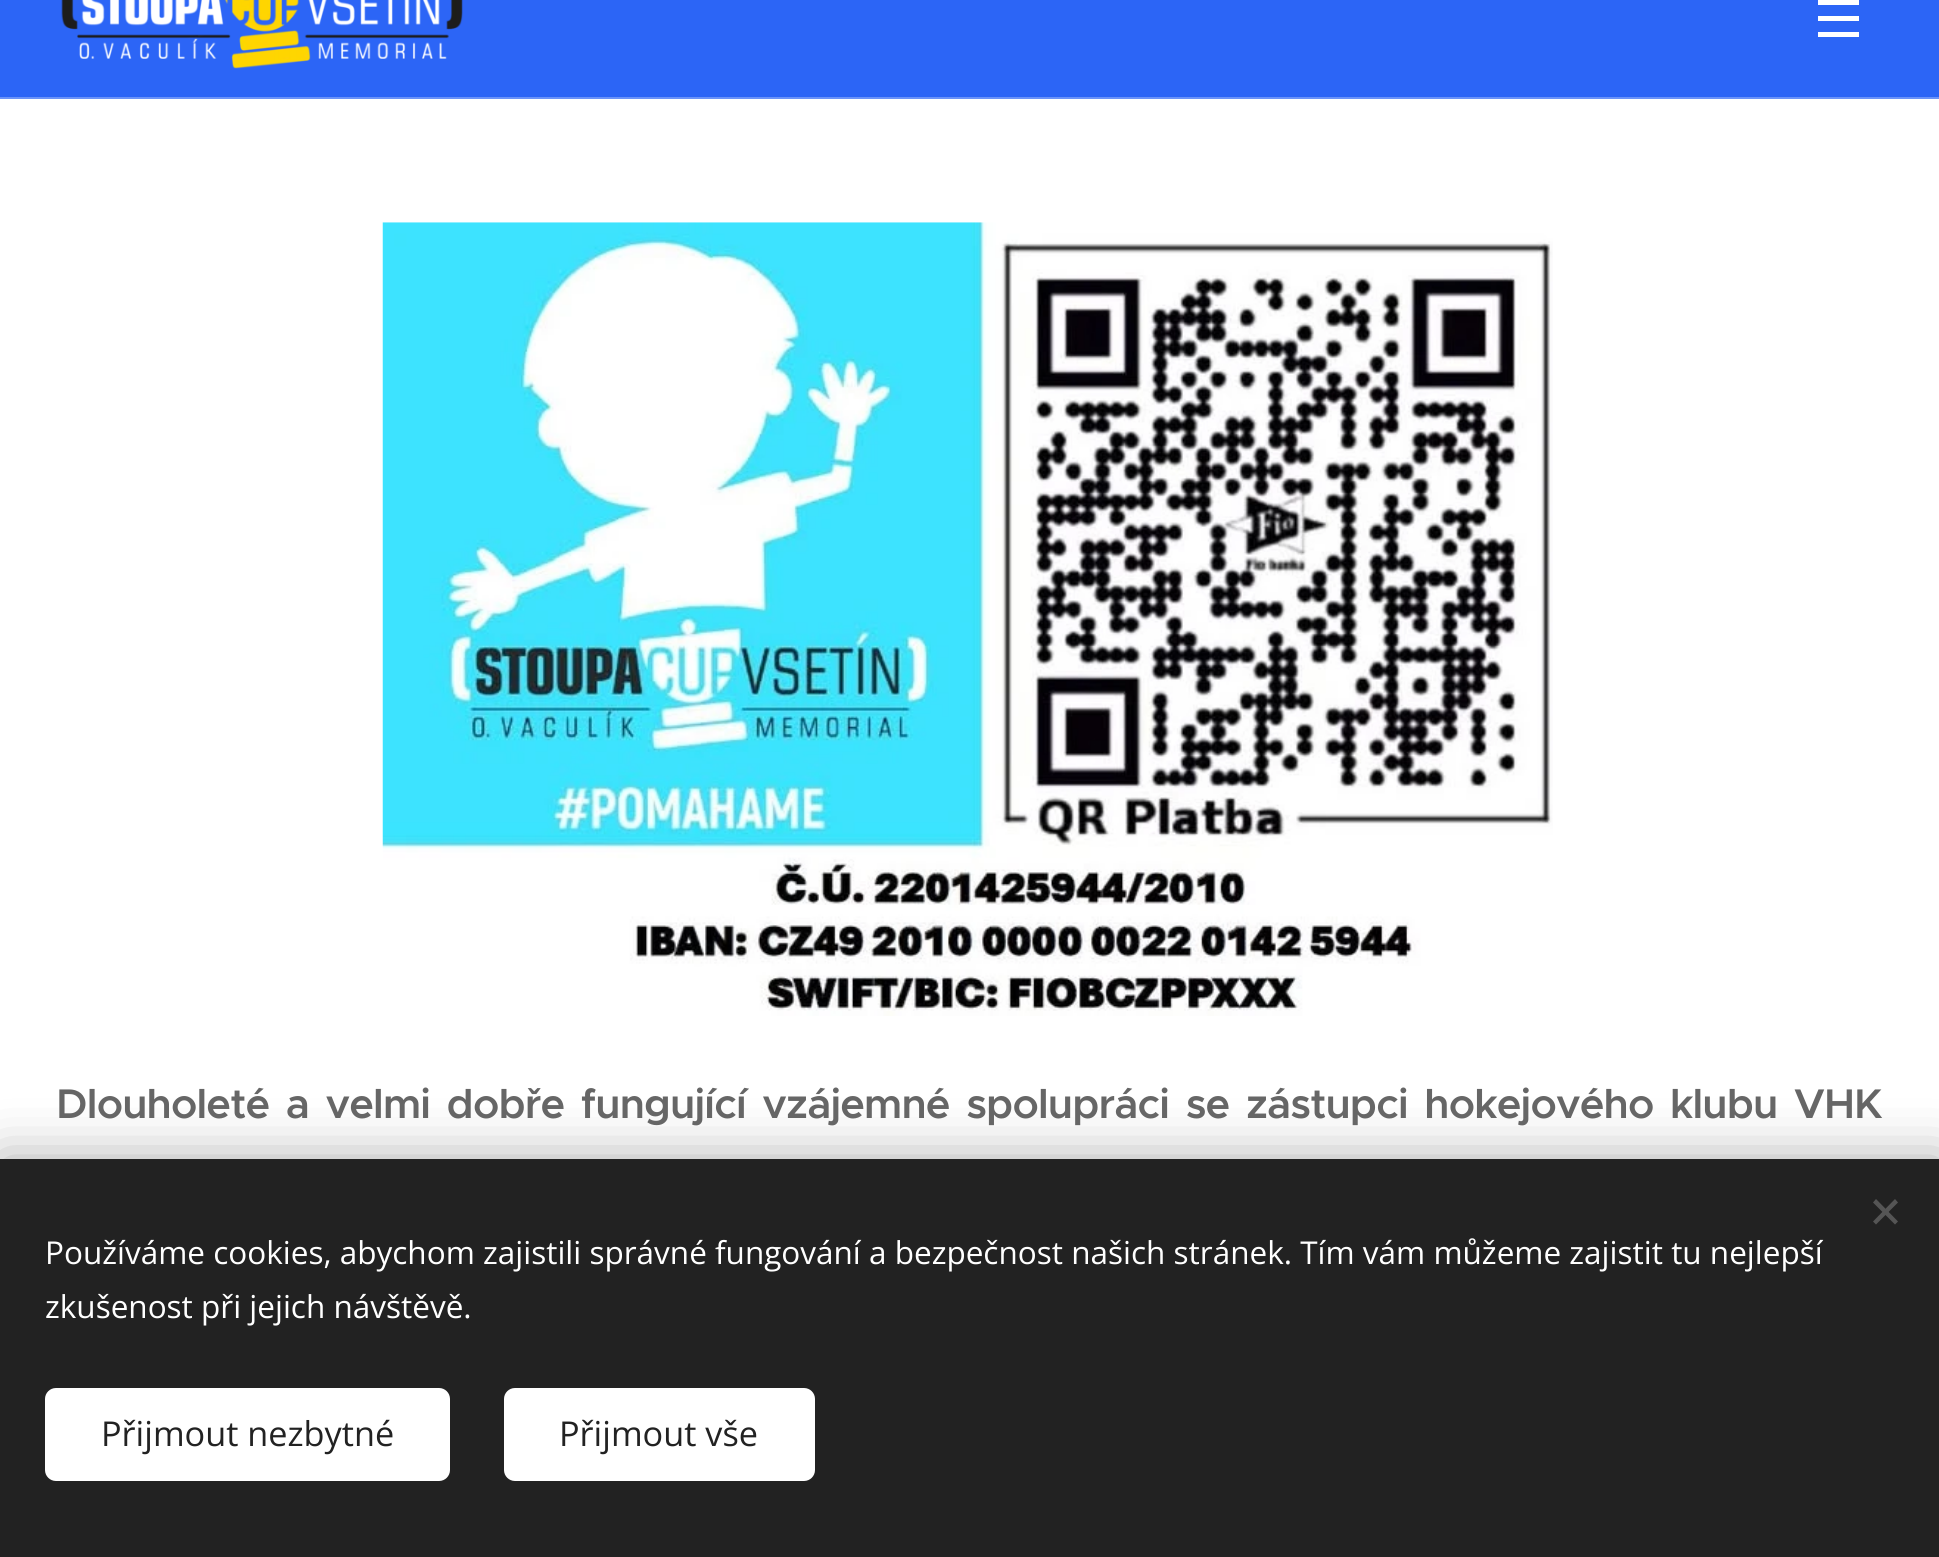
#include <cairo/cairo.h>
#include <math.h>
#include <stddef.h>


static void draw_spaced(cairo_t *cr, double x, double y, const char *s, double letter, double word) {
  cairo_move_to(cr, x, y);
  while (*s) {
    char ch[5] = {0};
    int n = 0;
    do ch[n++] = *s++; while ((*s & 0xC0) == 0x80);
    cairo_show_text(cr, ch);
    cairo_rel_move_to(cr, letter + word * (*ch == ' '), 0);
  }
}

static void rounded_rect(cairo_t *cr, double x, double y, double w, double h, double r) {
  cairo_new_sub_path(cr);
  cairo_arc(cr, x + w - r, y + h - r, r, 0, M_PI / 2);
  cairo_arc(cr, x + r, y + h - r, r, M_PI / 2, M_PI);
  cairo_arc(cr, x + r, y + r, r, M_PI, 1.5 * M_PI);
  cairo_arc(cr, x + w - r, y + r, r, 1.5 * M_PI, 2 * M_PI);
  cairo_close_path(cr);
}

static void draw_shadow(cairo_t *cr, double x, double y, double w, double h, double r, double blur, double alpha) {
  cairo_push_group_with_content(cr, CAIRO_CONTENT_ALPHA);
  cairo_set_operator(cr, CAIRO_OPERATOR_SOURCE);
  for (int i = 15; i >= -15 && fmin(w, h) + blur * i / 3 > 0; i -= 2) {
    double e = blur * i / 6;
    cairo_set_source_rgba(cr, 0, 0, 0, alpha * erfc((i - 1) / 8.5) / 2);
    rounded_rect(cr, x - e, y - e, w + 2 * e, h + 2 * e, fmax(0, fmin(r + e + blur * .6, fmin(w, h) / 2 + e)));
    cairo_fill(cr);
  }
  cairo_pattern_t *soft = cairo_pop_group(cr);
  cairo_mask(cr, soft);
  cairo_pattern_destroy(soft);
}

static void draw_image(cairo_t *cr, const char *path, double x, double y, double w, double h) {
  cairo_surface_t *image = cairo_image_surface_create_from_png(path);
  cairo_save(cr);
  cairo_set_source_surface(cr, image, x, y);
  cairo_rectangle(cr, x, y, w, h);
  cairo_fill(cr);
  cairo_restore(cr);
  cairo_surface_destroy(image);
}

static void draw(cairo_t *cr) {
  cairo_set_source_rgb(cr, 1, 1, 1);
  cairo_paint(cr);
  cairo_set_source_rgb(cr, 44 / 255.0, 101 / 255.0, 246 / 255.0);
  cairo_rectangle(cr, 0, 0, 1939, 97);
  cairo_fill(cr);
  draw_image(cr, "images/1.png", 61, 0, 402, 69);
  cairo_set_source_rgb(cr, 1, 1, 1);
  cairo_rectangle(cr, 1818, 16, 41, 5);
  cairo_fill(cr);
  cairo_rectangle(cr, 1818, 0, 41, 5);
  cairo_fill(cr);
  cairo_rectangle(cr, 1818, 32, 41, 5);
  cairo_fill(cr);
  cairo_set_source_rgb(cr, 107 / 255.0, 147 / 255.0, 249 / 255.0);
  cairo_rectangle(cr, 0, 97, 1939, 2);
  cairo_fill(cr);
  draw_image(cr, "images/2.png", 382, 222, 1171, 794);
  cairo_set_source_rgb(cr, 0, 0, 0);
  draw_shadow(cr, 0, 1159, 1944, 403, 0, 28, 0.33);
  cairo_set_source_rgb(cr, 34 / 255.0, 34 / 255.0, 34 / 255.0);
  cairo_rectangle(cr, 0, 1159, 1939, 398);
  cairo_fill(cr);
  cairo_set_source_rgb(cr, 85 / 255.0, 85 / 255.0, 85 / 255.0);
  cairo_new_path(cr);
  cairo_move_to(cr, 1873, 1221.5);
  cairo_line_to(cr, 1895, 1199);
  cairo_line_to(cr, 1898, 1202.5);
  cairo_line_to(cr, 1876, 1224.5);
  cairo_close_path(cr);
  cairo_fill(cr);
  cairo_new_path(cr);
  cairo_move_to(cr, 1876, 1199);
  cairo_line_to(cr, 1898, 1221.5);
  cairo_line_to(cr, 1895, 1224.5);
  cairo_line_to(cr, 1873, 1202.5);
  cairo_close_path(cr);
  cairo_fill(cr);
  cairo_set_source_rgb(cr, 1, 1, 1);
  rounded_rect(cr, 45, 1388, 405, 93, 11);
  cairo_fill(cr);
  rounded_rect(cr, 504, 1388, 311, 93, 11);
  cairo_fill(cr);
  cairo_select_font_face(cr, "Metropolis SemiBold", CAIRO_FONT_SLANT_NORMAL, CAIRO_FONT_WEIGHT_NORMAL);
  cairo_set_font_size(cr, 41.6);
  cairo_set_source_rgb(cr, 102 / 255.0, 102 / 255.0, 102 / 255.0);
  draw_spaced(cr, 56, 1118, "Dlouholeté a velmi dobře fungující vzájemné spolupráci se zástupci hokejového klubu VHK", -0.83, 5.5);
  cairo_select_font_face(cr, "Open Sans", CAIRO_FONT_SLANT_NORMAL, CAIRO_FONT_WEIGHT_NORMAL);
  cairo_set_font_size(cr, 31.5);
  cairo_set_source_rgb(cr, 1, 1, 1);
  cairo_move_to(cr, 45, 1264);
  cairo_show_text(cr, "Používáme cookies, abychom zajistili správné fungování a bezpečnost našich stránek. Tím vám můžeme zajistit tu nejlepší");
  cairo_move_to(cr, 45, 1318);
  cairo_show_text(cr, "zkušenost při jejich návštěvě.");
  cairo_set_font_size(cr, 34.25);
  cairo_set_source_rgb(cr, 34 / 255.0, 34 / 255.0, 34 / 255.0);
  cairo_move_to(cr, 101, 1446);
  cairo_show_text(cr, "Přijmout nezbytné");
  cairo_move_to(cr, 559, 1446);
  cairo_show_text(cr, "Přijmout vše");
}

int main(void) {
  cairo_surface_t *surface = cairo_image_surface_create(CAIRO_FORMAT_RGB24, 1939, 1557);
  cairo_t *cr = cairo_create(surface);
  cairo_font_options_t *options = cairo_font_options_create();
  cairo_font_options_set_hint_metrics(options, CAIRO_HINT_METRICS_OFF);
  cairo_font_options_set_hint_style(options, CAIRO_HINT_STYLE_NONE);
  cairo_set_font_options(cr, options);
  cairo_set_miter_limit(cr, 4);
  draw(cr);
  cairo_surface_write_to_png(surface, "out.png");
  cairo_font_options_destroy(options);
  cairo_destroy(cr);
  cairo_surface_destroy(surface);
  return 0;
}
